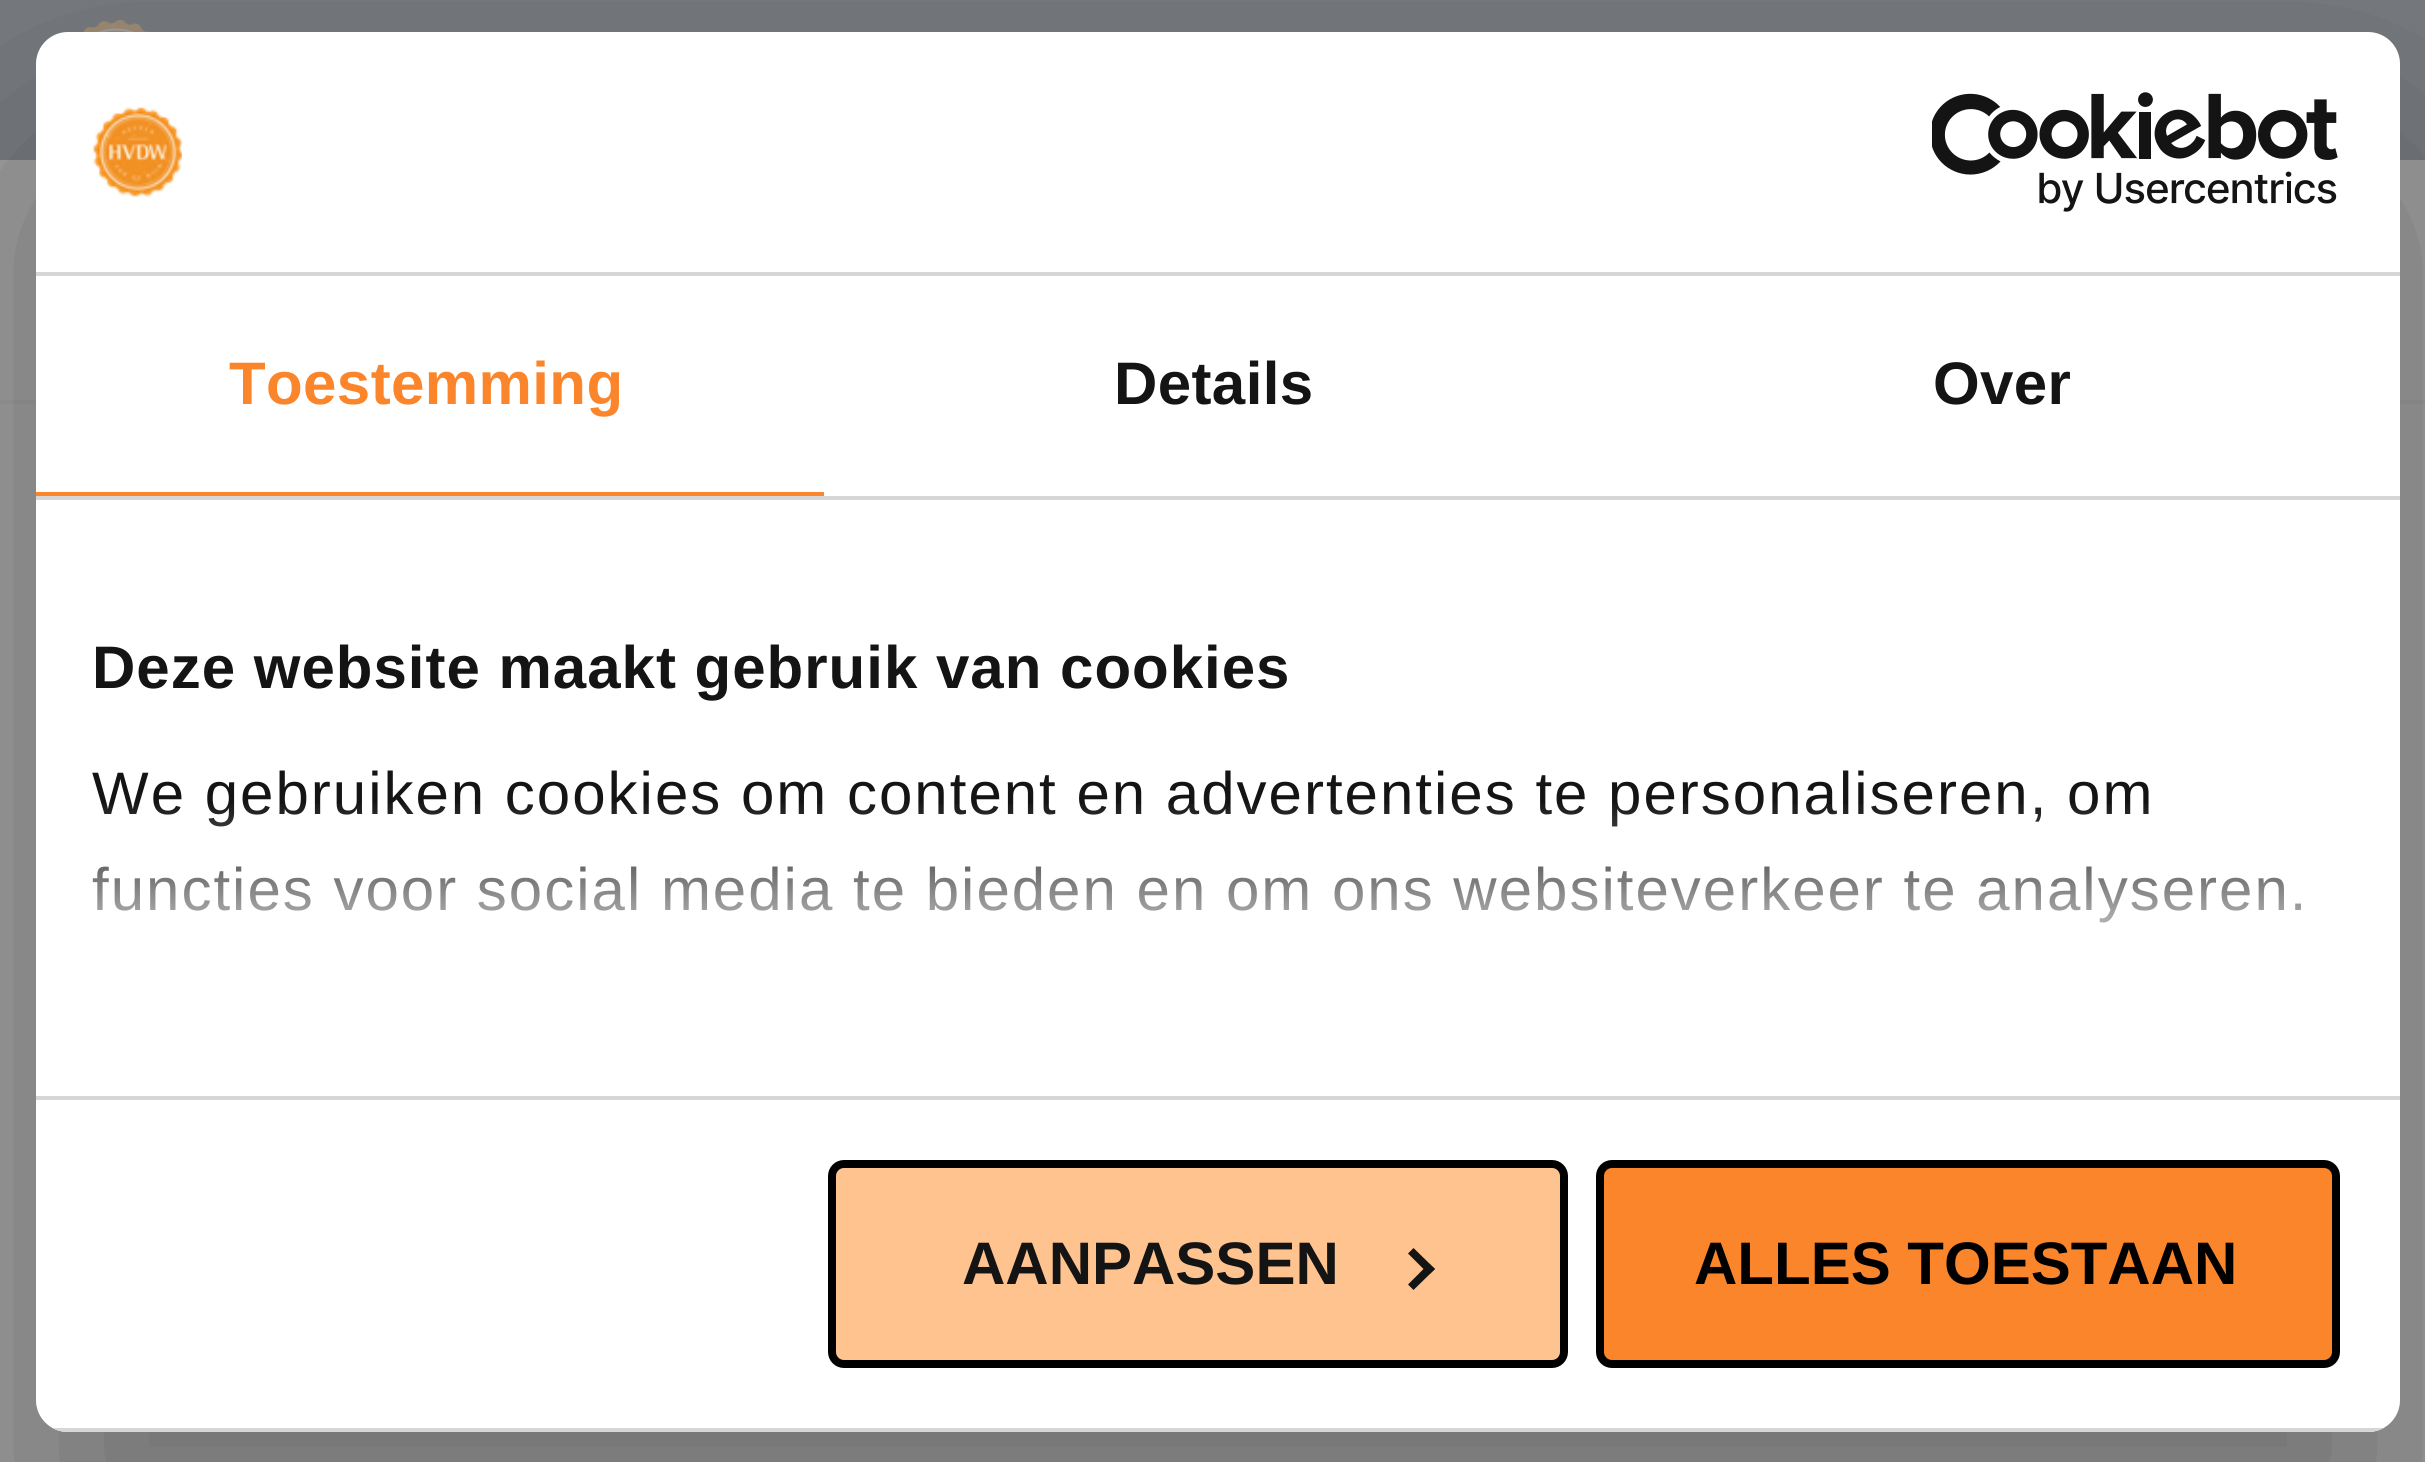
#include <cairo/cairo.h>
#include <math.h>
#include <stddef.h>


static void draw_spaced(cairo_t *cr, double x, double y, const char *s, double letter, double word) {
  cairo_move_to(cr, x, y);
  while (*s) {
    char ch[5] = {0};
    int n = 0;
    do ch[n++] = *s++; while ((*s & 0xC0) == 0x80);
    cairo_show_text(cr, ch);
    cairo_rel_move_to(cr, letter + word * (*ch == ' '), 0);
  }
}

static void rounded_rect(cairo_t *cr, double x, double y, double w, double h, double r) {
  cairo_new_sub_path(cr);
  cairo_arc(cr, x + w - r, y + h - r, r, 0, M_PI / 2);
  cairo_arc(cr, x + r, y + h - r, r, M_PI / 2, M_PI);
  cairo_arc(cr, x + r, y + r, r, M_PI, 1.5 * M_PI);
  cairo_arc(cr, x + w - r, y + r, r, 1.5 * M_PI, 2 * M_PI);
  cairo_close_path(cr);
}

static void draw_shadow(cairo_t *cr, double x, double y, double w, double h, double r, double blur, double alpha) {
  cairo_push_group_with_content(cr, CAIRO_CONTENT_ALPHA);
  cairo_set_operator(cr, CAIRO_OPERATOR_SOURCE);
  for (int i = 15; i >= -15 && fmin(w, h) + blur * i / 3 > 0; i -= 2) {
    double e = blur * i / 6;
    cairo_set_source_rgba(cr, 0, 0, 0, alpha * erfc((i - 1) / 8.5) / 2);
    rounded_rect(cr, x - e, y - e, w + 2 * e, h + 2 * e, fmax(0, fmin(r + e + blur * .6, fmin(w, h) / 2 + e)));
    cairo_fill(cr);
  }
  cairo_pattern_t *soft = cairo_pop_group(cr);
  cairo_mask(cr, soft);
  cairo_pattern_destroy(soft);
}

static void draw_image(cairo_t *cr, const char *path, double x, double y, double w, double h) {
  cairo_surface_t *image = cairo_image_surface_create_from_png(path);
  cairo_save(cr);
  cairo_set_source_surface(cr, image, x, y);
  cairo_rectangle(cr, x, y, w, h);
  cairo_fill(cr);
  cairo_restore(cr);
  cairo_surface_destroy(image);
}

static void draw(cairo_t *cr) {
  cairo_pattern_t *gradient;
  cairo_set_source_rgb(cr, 160 / 255.0, 160 / 255.0, 160 / 255.0);
  cairo_paint(cr);
  cairo_set_source_rgb(cr, 119 / 255.0, 122 / 255.0, 127 / 255.0);
  cairo_rectangle(cr, 0, 0, 2425, 160);
  cairo_fill(cr);
  draw_image(cr, "images/1.png", 83, 20, 69, 12);
  cairo_set_source_rgb(cr, 155 / 255.0, 155 / 255.0, 155 / 255.0);
  cairo_rectangle(cr, 0, 400, 2425, 4);
  cairo_fill(cr);
  cairo_save(cr);
  cairo_set_fill_rule(cr, CAIRO_FILL_RULE_EVEN_ODD);
  cairo_new_path(cr);
  cairo_move_to(cr, 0, 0);
  cairo_line_to(cr, 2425, 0);
  cairo_line_to(cr, 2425, 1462);
  cairo_line_to(cr, 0, 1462);
  cairo_close_path(cr);
  cairo_move_to(cr, 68, 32);
  cairo_line_to(cr, 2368, 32);
  cairo_curve_to(cr, 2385.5, 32, 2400, 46.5, 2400, 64);
  cairo_line_to(cr, 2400, 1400);
  cairo_curve_to(cr, 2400, 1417.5, 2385.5, 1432, 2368, 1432);
  cairo_line_to(cr, 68, 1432);
  cairo_curve_to(cr, 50.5, 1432, 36, 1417.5, 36, 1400);
  cairo_line_to(cr, 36, 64);
  cairo_curve_to(cr, 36, 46.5, 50.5, 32, 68, 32);
  cairo_close_path(cr);
  cairo_clip(cr);
  cairo_set_source_rgb(cr, 0, 0, 0);
  draw_shadow(cr, 36, 160, 2364, 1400, 32, 136, 0.3);
  cairo_restore(cr);
  cairo_set_source_rgb(cr, 1, 1, 1);
  rounded_rect(cr, 36, 32, 2364, 1400, 32);
  cairo_fill(cr);
  cairo_set_source_rgb(cr, 214 / 255.0, 214 / 255.0, 214 / 255.0);
  cairo_rectangle(cr, 36, 272, 2364, 4);
  cairo_fill(cr);
  draw_image(cr, "images/2.png", 93, 107, 89, 91);
  draw_image(cr, "images/3.png", 1932, 92, 406, 120);
  cairo_rectangle(cr, 36, 496, 2364, 4);
  cairo_fill(cr);
  cairo_set_source_rgb(cr, 251 / 255.0, 133 / 255.0, 42 / 255.0);
  cairo_rectangle(cr, 36, 492, 788, 4);
  cairo_fill(cr);
  cairo_set_source_rgb(cr, 214 / 255.0, 214 / 255.0, 214 / 255.0);
  cairo_rectangle(cr, 36, 1096, 2364, 4);
  cairo_fill(cr);
  cairo_save(cr);
  rounded_rect(cr, 36, 32, 2364, 1400, 32);
  cairo_clip(cr);
  cairo_rectangle(cr, 52, 1428, 2332, 4);
  cairo_fill(cr);
  cairo_restore(cr);
  cairo_set_source_rgb(cr, 1, 195 / 255.0, 143 / 255.0);
  rounded_rect(cr, 832, 1164, 732, 200, 12);
  cairo_fill_preserve(cr);
  cairo_set_source_rgb(cr, 0, 0, 0);
  cairo_set_line_width(cr, 8);
  cairo_stroke(cr);
  cairo_set_source_rgb(cr, 20 / 255.0, 20 / 255.0, 20 / 255.0);
  cairo_new_path(cr);
  cairo_move_to(cr, 1413.5, 1248);
  cairo_line_to(cr, 1435, 1269);
  cairo_line_to(cr, 1429, 1274.5);
  cairo_line_to(cr, 1408, 1253.5);
  cairo_close_path(cr);
  cairo_fill(cr);
  cairo_new_path(cr);
  cairo_move_to(cr, 1429, 1263.5);
  cairo_line_to(cr, 1435, 1269);
  cairo_line_to(cr, 1413.5, 1290);
  cairo_line_to(cr, 1408, 1284.5);
  cairo_close_path(cr);
  cairo_fill(cr);
  cairo_set_source_rgb(cr, 251 / 255.0, 133 / 255.0, 42 / 255.0);
  rounded_rect(cr, 1600, 1164, 736, 200, 12);
  cairo_fill_preserve(cr);
  cairo_set_source_rgb(cr, 0, 0, 0);
  cairo_stroke(cr);
  cairo_select_font_face(cr, "Liberation Sans", CAIRO_FONT_SLANT_NORMAL, CAIRO_FONT_WEIGHT_BOLD);
  cairo_set_font_size(cr, 60);
  cairo_set_source_rgb(cr, 251 / 255.0, 133 / 255.0, 42 / 255.0);
  draw_spaced(cr, 229, 404, "Toestemming", 0.4, 0);
  cairo_set_source_rgb(cr, 20 / 255.0, 20 / 255.0, 20 / 255.0);
  draw_spaced(cr, 1114, 404, "Details", 0.4, 0);
  draw_spaced(cr, 1933, 404, "Over", 0.4, 0);
  draw_spaced(cr, 92, 688, "Deze website maakt gebruik van cookies", 1, 0);
  cairo_select_font_face(cr, "Liberation Sans", CAIRO_FONT_SLANT_NORMAL, CAIRO_FONT_WEIGHT_NORMAL);
  draw_spaced(cr, 92, 814, "We gebruiken cookies om content en advertenties te personaliseren, om", 2, 0);
  draw_spaced(cr, 92, 910, "functies voor social media te bieden en om ons websiteverkeer te analyseren.", 2, 0);
  gradient = cairo_pattern_create_linear(1190, 1096, 1190, 800);
  cairo_pattern_add_color_stop_rgba(gradient, 0, 1, 1, 1, 1);
  cairo_pattern_add_color_stop_rgba(gradient, 0.5, 1, 1, 1, 0.8);
  cairo_pattern_add_color_stop_rgba(gradient, 1, 1, 1, 1, 0);
  cairo_set_source(cr, gradient);
  cairo_pattern_destroy(gradient);
  cairo_rectangle(cr, 92, 804, 2209, 119);
  cairo_fill(cr);
  cairo_select_font_face(cr, "Liberation Sans", CAIRO_FONT_SLANT_NORMAL, CAIRO_FONT_WEIGHT_BOLD);
  cairo_set_source_rgb(cr, 20 / 255.0, 20 / 255.0, 20 / 255.0);
  cairo_move_to(cr, 962, 1284);
  cairo_show_text(cr, "AANPASSEN");
  cairo_set_source_rgb(cr, 0, 0, 0);
  cairo_move_to(cr, 1694, 1284);
  cairo_show_text(cr, "ALLES TOESTAAN");
}

int main(void) {
  cairo_surface_t *surface = cairo_image_surface_create(CAIRO_FORMAT_RGB24, 2425, 1462);
  cairo_t *cr = cairo_create(surface);
  cairo_font_options_t *options = cairo_font_options_create();
  cairo_font_options_set_hint_metrics(options, CAIRO_HINT_METRICS_OFF);
  cairo_font_options_set_hint_style(options, CAIRO_HINT_STYLE_NONE);
  cairo_set_font_options(cr, options);
  cairo_set_miter_limit(cr, 4);
  draw(cr);
  cairo_surface_write_to_png(surface, "out.png");
  cairo_font_options_destroy(options);
  cairo_destroy(cr);
  cairo_surface_destroy(surface);
  return 0;
}
